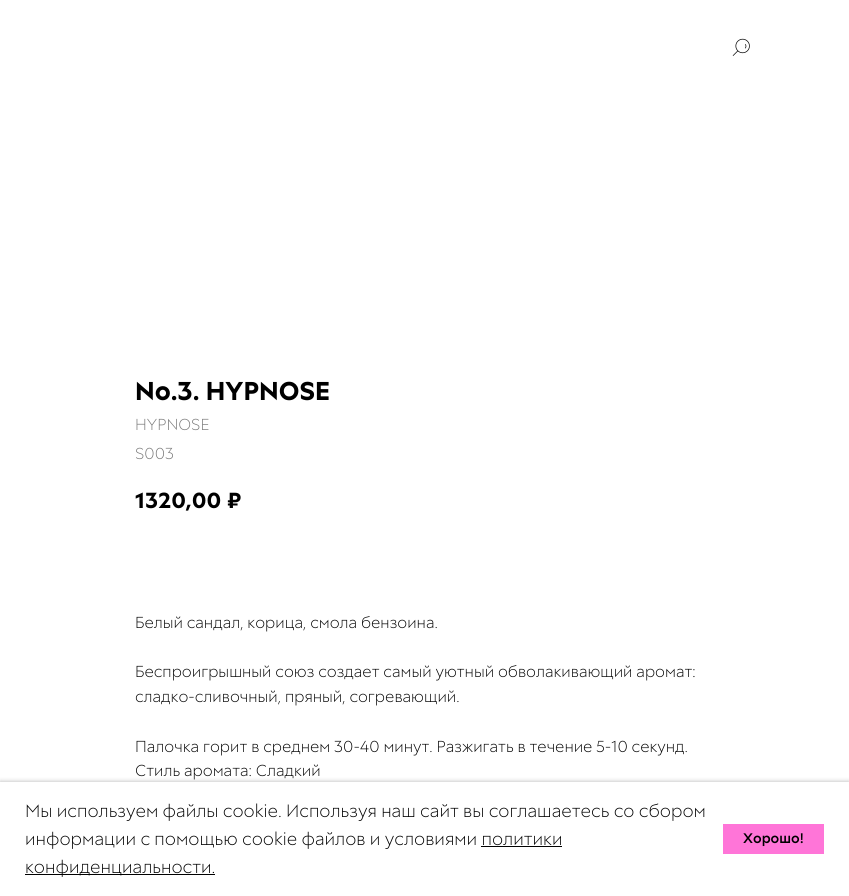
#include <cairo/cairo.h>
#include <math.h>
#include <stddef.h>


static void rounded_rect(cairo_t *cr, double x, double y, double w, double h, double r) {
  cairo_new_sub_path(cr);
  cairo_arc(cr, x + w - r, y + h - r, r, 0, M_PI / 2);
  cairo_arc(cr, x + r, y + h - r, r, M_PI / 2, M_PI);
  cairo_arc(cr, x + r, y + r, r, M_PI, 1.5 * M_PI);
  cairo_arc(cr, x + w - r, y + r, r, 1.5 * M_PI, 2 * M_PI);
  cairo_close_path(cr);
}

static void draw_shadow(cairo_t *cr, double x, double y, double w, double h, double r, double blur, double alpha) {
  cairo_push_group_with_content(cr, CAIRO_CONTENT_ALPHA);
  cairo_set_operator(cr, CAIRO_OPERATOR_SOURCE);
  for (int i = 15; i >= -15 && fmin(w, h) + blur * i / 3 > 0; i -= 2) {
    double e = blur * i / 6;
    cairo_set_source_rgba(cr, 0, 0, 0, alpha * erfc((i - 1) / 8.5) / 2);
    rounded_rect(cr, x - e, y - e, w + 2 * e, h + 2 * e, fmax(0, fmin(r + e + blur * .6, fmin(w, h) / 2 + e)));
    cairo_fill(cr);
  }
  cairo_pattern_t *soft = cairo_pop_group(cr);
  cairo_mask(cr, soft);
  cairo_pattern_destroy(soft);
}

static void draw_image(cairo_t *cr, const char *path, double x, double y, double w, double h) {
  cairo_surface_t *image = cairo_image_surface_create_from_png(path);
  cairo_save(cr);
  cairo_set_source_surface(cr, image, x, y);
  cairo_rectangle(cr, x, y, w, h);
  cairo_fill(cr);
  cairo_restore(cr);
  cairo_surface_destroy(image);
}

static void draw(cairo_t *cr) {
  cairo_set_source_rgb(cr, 1, 1, 1);
  cairo_paint(cr);
  draw_image(cr, "images/1.png", 732, 38, 18, 18);
  cairo_set_source_rgb(cr, 0, 0, 0);
  draw_shadow(cr, 0, 782, 849, 114, 0, 2.5, 0.3);
  cairo_set_source_rgb(cr, 1, 1, 1);
  cairo_rectangle(cr, 0, 782, 849, 114);
  cairo_fill(cr);
  cairo_set_source_rgb(cr, 0, 0, 0);
  cairo_rectangle(cr, 481, 846, 81, 1);
  cairo_fill(cr);
  cairo_rectangle(cr, 25, 874, 190, 1);
  cairo_fill(cr);
  cairo_set_source_rgb(cr, 1, 117 / 255.0, 216 / 255.0);
  cairo_rectangle(cr, 723, 824, 101, 30);
  cairo_fill(cr);
  cairo_select_font_face(cr, "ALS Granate", CAIRO_FONT_SLANT_NORMAL, CAIRO_FONT_WEIGHT_BOLD);
  cairo_set_font_size(cr, 26);
  cairo_set_source_rgb(cr, 0, 0, 0);
  cairo_move_to(cr, 135, 400);
  cairo_show_text(cr, "No.3. HYPNOSE");
  cairo_select_font_face(cr, "ALS Granate Light", CAIRO_FONT_SLANT_NORMAL, CAIRO_FONT_WEIGHT_NORMAL);
  cairo_set_font_size(cr, 16);
  cairo_set_source_rgb(cr, 119 / 255.0, 119 / 255.0, 119 / 255.0);
  cairo_move_to(cr, 135, 430);
  cairo_show_text(cr, "HYPNOSE");
  cairo_move_to(cr, 135, 459);
  cairo_show_text(cr, "S003");
  cairo_select_font_face(cr, "ALS Granate", CAIRO_FONT_SLANT_NORMAL, CAIRO_FONT_WEIGHT_BOLD);
  cairo_set_font_size(cr, 22);
  cairo_set_source_rgb(cr, 0, 0, 0);
  cairo_move_to(cr, 135, 508);
  cairo_show_text(cr, "1320,00");
  cairo_move_to(cr, 227, 508);
  cairo_show_text(cr, "₽");
  cairo_select_font_face(cr, "ALS Granate Light", CAIRO_FONT_SLANT_NORMAL, CAIRO_FONT_WEIGHT_NORMAL);
  cairo_set_font_size(cr, 16);
  cairo_move_to(cr, 135, 628);
  cairo_show_text(cr, "Белый сандал, корица, смола бензоина.");
  cairo_move_to(cr, 135, 677);
  cairo_show_text(cr, "Беспроигрышный союз создает самый уютный обволакивающий аромат:");
  cairo_move_to(cr, 135, 702);
  cairo_show_text(cr, "сладко-сливочный, пряный, согревающий.");
  cairo_move_to(cr, 135, 752);
  cairo_show_text(cr, "Палочка горит в среднем 30-40 минут. Разжигать в течение 5-10 секунд.");
  cairo_move_to(cr, 135, 776);
  cairo_show_text(cr, "Стиль аромата: Сладкий");
  cairo_set_font_size(cr, 18);
  cairo_move_to(cr, 25, 817);
  cairo_show_text(cr, "Мы используем файлы cookie. Используя наш сайт вы соглашаетесь со сбором");
  cairo_move_to(cr, 25, 845);
  cairo_show_text(cr, "информации с помощью cookie файлов и условиями политики");
  cairo_move_to(cr, 25, 873);
  cairo_show_text(cr, "конфиденциальности.");
  cairo_select_font_face(cr, "ALS Granate Medium", CAIRO_FONT_SLANT_NORMAL, CAIRO_FONT_WEIGHT_NORMAL);
  cairo_set_font_size(cr, 14);
  cairo_move_to(cr, 743, 843);
  cairo_show_text(cr, "Хорошо!");
}

int main(void) {
  cairo_surface_t *surface = cairo_image_surface_create(CAIRO_FORMAT_RGB24, 849, 896);
  cairo_t *cr = cairo_create(surface);
  cairo_font_options_t *options = cairo_font_options_create();
  cairo_font_options_set_hint_metrics(options, CAIRO_HINT_METRICS_OFF);
  cairo_font_options_set_hint_style(options, CAIRO_HINT_STYLE_NONE);
  cairo_set_font_options(cr, options);
  cairo_set_miter_limit(cr, 4);
  draw(cr);
  cairo_surface_write_to_png(surface, "out.png");
  cairo_font_options_destroy(options);
  cairo_destroy(cr);
  cairo_surface_destroy(surface);
  return 0;
}
